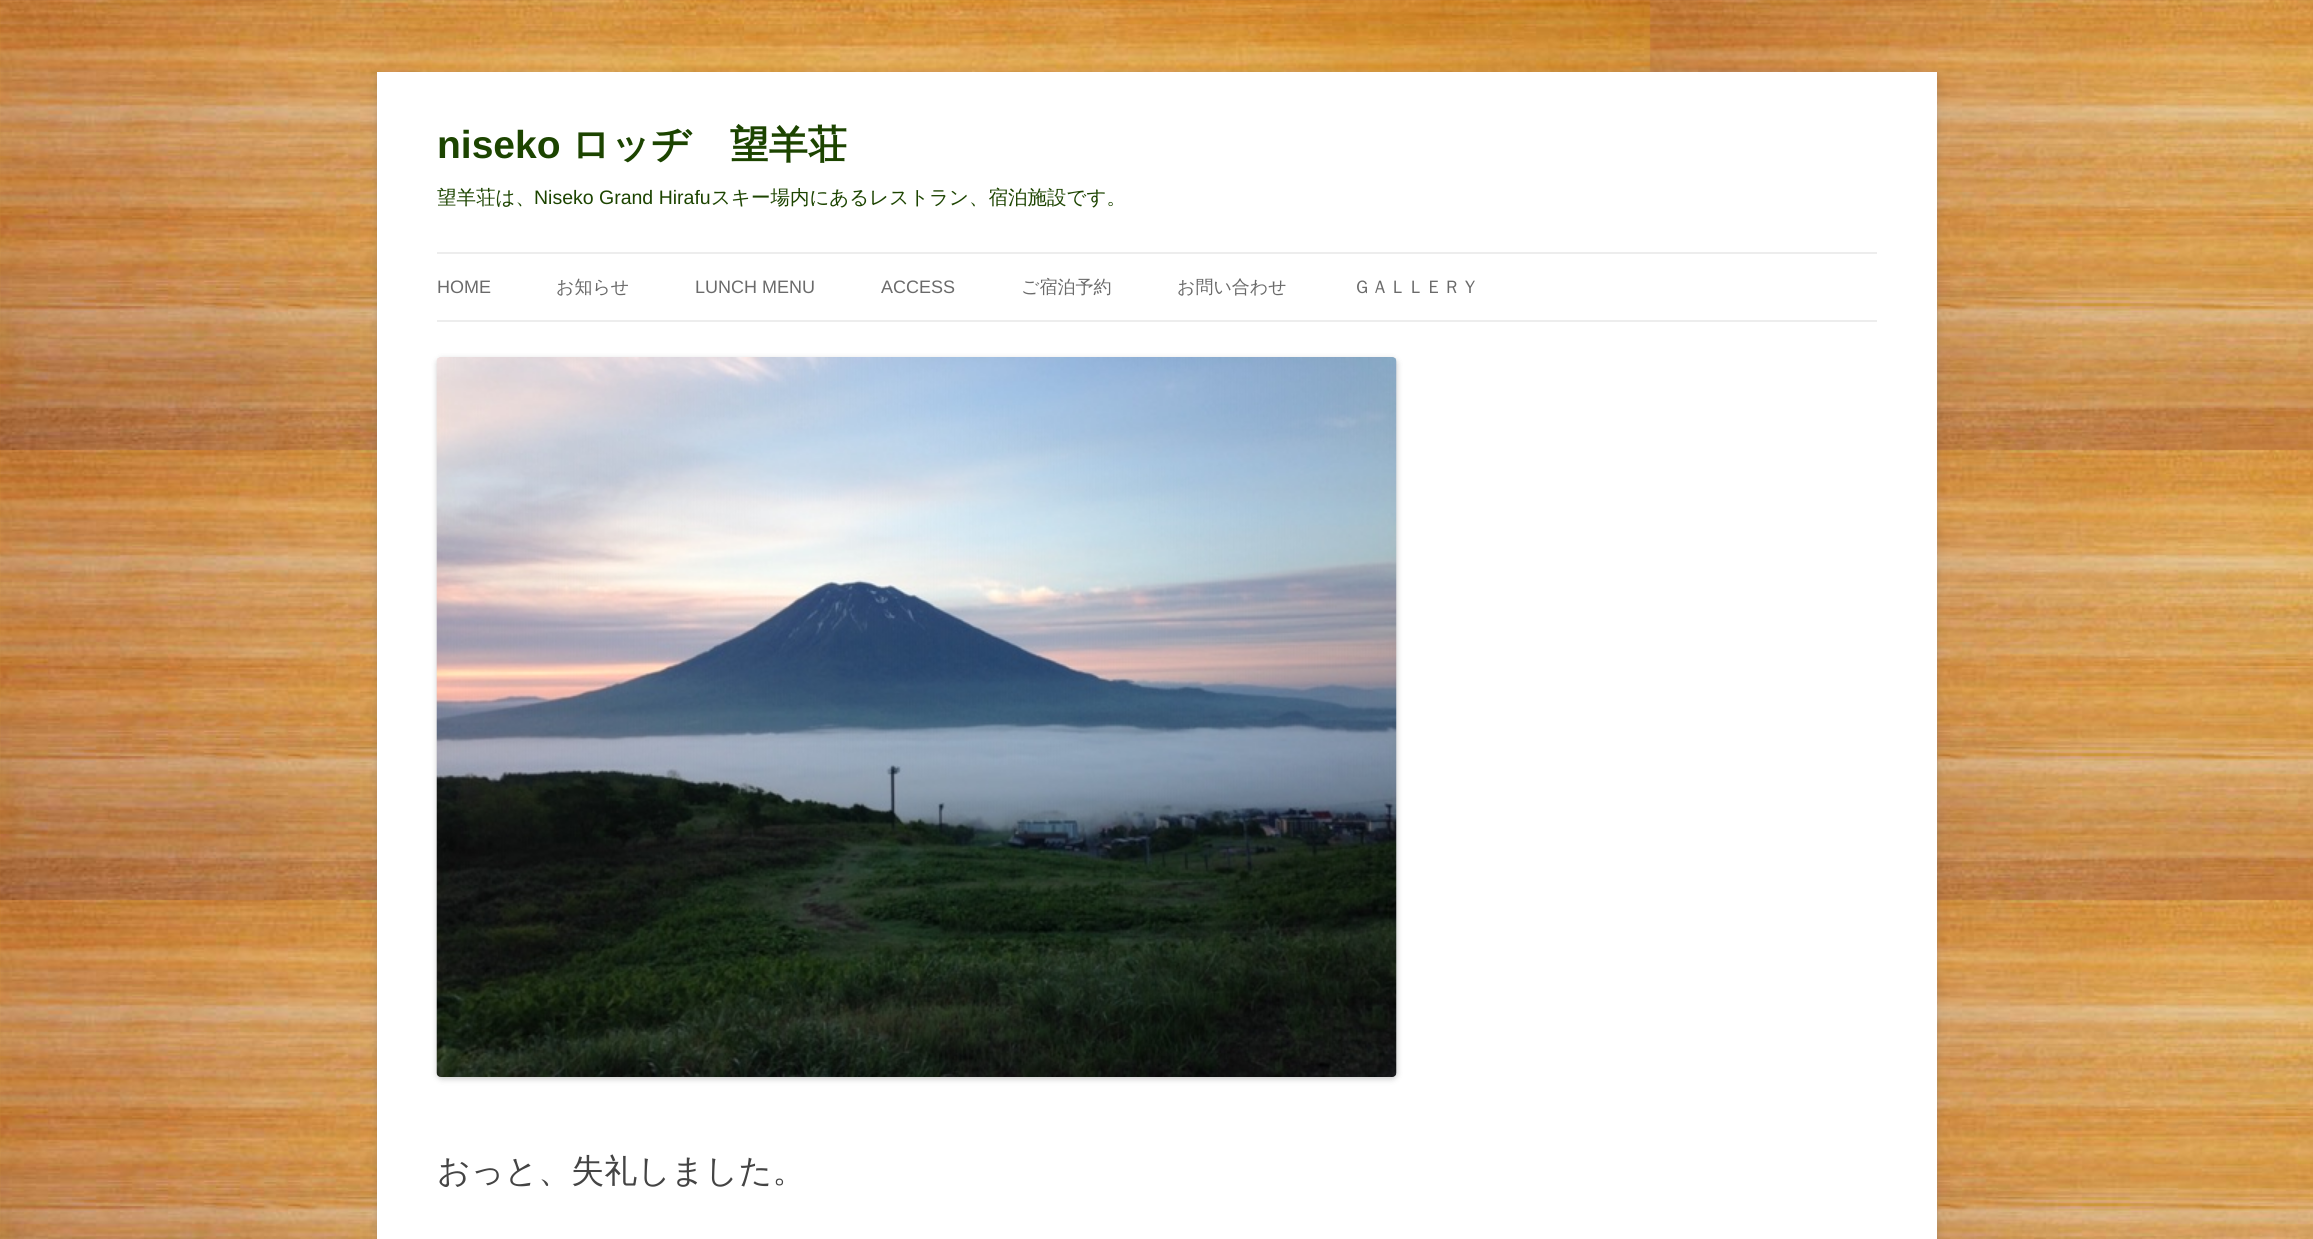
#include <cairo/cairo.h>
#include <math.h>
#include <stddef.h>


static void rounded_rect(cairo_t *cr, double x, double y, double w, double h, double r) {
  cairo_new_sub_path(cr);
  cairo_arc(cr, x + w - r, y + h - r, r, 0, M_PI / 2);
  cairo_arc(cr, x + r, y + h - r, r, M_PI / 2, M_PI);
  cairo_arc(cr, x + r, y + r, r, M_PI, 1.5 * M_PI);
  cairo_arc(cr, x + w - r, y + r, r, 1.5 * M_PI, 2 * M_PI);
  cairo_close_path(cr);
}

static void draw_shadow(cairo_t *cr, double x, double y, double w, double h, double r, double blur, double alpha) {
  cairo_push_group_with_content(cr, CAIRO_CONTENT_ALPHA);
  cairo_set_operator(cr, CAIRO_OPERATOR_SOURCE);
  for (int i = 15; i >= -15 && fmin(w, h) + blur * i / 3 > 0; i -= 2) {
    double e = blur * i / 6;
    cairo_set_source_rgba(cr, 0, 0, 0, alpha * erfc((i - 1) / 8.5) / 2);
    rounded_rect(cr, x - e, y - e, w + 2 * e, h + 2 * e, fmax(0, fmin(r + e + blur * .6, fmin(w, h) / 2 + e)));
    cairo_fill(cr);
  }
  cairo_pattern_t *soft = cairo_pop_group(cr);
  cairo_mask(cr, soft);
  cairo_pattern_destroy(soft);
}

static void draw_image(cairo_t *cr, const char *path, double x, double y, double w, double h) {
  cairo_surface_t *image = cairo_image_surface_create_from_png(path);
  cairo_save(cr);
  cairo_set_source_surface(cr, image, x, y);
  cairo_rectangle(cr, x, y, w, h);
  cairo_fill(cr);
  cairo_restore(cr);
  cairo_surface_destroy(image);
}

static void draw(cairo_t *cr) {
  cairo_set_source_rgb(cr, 1, 1, 1);
  cairo_paint(cr);
  draw_image(cr, "images/1.png", 0, 0, 2313, 1239);
  cairo_set_source_rgb(cr, 100 / 255.0, 100 / 255.0, 100 / 255.0);
  draw_shadow(cr, 377, 75, 1560, 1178, 0, 4.5, 0.3);
  cairo_set_source_rgb(cr, 1, 1, 1);
  cairo_rectangle(cr, 377, 72, 1560, 1167);
  cairo_fill(cr);
  cairo_set_source_rgb(cr, 237 / 255.0, 237 / 255.0, 237 / 255.0);
  cairo_rectangle(cr, 437, 252, 1440, 2);
  cairo_fill(cr);
  cairo_rectangle(cr, 437, 320, 1440, 2);
  cairo_fill(cr);
  cairo_set_source_rgb(cr, 0, 0, 0);
  draw_shadow(cr, 437, 359, 960, 720, 5, 3, 0.2);
  draw_image(cr, "images/2.png", 436, 357, 961, 720);
  cairo_select_font_face(cr, "Liberation Sans", CAIRO_FONT_SLANT_NORMAL, CAIRO_FONT_WEIGHT_BOLD);
  cairo_set_font_size(cr, 39);
  cairo_set_source_rgb(cr, 28 / 255.0, 68 / 255.0, 0);
  cairo_move_to(cr, 437, 158);
  cairo_show_text(cr, "niseko");
  cairo_select_font_face(cr, "WenQuanYi Zen Hei", CAIRO_FONT_SLANT_NORMAL, CAIRO_FONT_WEIGHT_BOLD);
  cairo_move_to(cr, 571, 158);
  cairo_show_text(cr, "ロッヂ　望羊荘");
  cairo_select_font_face(cr, "WenQuanYi Zen Hei Medium", CAIRO_FONT_SLANT_NORMAL, CAIRO_FONT_WEIGHT_NORMAL);
  cairo_set_font_size(cr, 19.5);
  cairo_move_to(cr, 437, 204);
  cairo_show_text(cr, "望羊荘は、");
  cairo_select_font_face(cr, "Liberation Sans", CAIRO_FONT_SLANT_NORMAL, CAIRO_FONT_WEIGHT_NORMAL);
  cairo_move_to(cr, 534, 204);
  cairo_show_text(cr, "Niseko Grand Hirafu");
  cairo_select_font_face(cr, "WenQuanYi Zen Hei Medium", CAIRO_FONT_SLANT_NORMAL, CAIRO_FONT_WEIGHT_NORMAL);
  cairo_move_to(cr, 711, 204);
  cairo_show_text(cr, "スキー場内にあるレストラン、宿泊施設です。");
  cairo_select_font_face(cr, "Liberation Sans", CAIRO_FONT_SLANT_NORMAL, CAIRO_FONT_WEIGHT_NORMAL);
  cairo_set_font_size(cr, 18);
  cairo_set_source_rgb(cr, 106 / 255.0, 106 / 255.0, 106 / 255.0);
  cairo_move_to(cr, 437, 293);
  cairo_show_text(cr, "HOME");
  cairo_select_font_face(cr, "WenQuanYi Zen Hei Medium", CAIRO_FONT_SLANT_NORMAL, CAIRO_FONT_WEIGHT_NORMAL);
  cairo_move_to(cr, 556, 293);
  cairo_show_text(cr, "お知らせ");
  cairo_select_font_face(cr, "Liberation Sans", CAIRO_FONT_SLANT_NORMAL, CAIRO_FONT_WEIGHT_NORMAL);
  cairo_move_to(cr, 695, 293);
  cairo_show_text(cr, "LUNCH MENU");
  cairo_move_to(cr, 881, 293);
  cairo_show_text(cr, "ACCESS");
  cairo_select_font_face(cr, "WenQuanYi Zen Hei Medium", CAIRO_FONT_SLANT_NORMAL, CAIRO_FONT_WEIGHT_NORMAL);
  cairo_move_to(cr, 1021, 293);
  cairo_show_text(cr, "ご宿泊予約");
  cairo_move_to(cr, 1177, 293);
  cairo_show_text(cr, "お問い合わせ");
  cairo_move_to(cr, 1353, 293);
  cairo_show_text(cr, "ＧＡＬＬＥＲＹ");
  cairo_set_font_size(cr, 33);
  cairo_set_source_rgb(cr, 68 / 255.0, 68 / 255.0, 68 / 255.0);
  cairo_move_to(cr, 437, 1182);
  cairo_show_text(cr, "おっと、失礼しました。");
}

int main(void) {
  cairo_surface_t *surface = cairo_image_surface_create(CAIRO_FORMAT_RGB24, 2313, 1239);
  cairo_t *cr = cairo_create(surface);
  cairo_font_options_t *options = cairo_font_options_create();
  cairo_font_options_set_hint_metrics(options, CAIRO_HINT_METRICS_OFF);
  cairo_font_options_set_hint_style(options, CAIRO_HINT_STYLE_NONE);
  cairo_set_font_options(cr, options);
  cairo_set_miter_limit(cr, 4);
  draw(cr);
  cairo_surface_write_to_png(surface, "out.png");
  cairo_font_options_destroy(options);
  cairo_destroy(cr);
  cairo_surface_destroy(surface);
  return 0;
}
